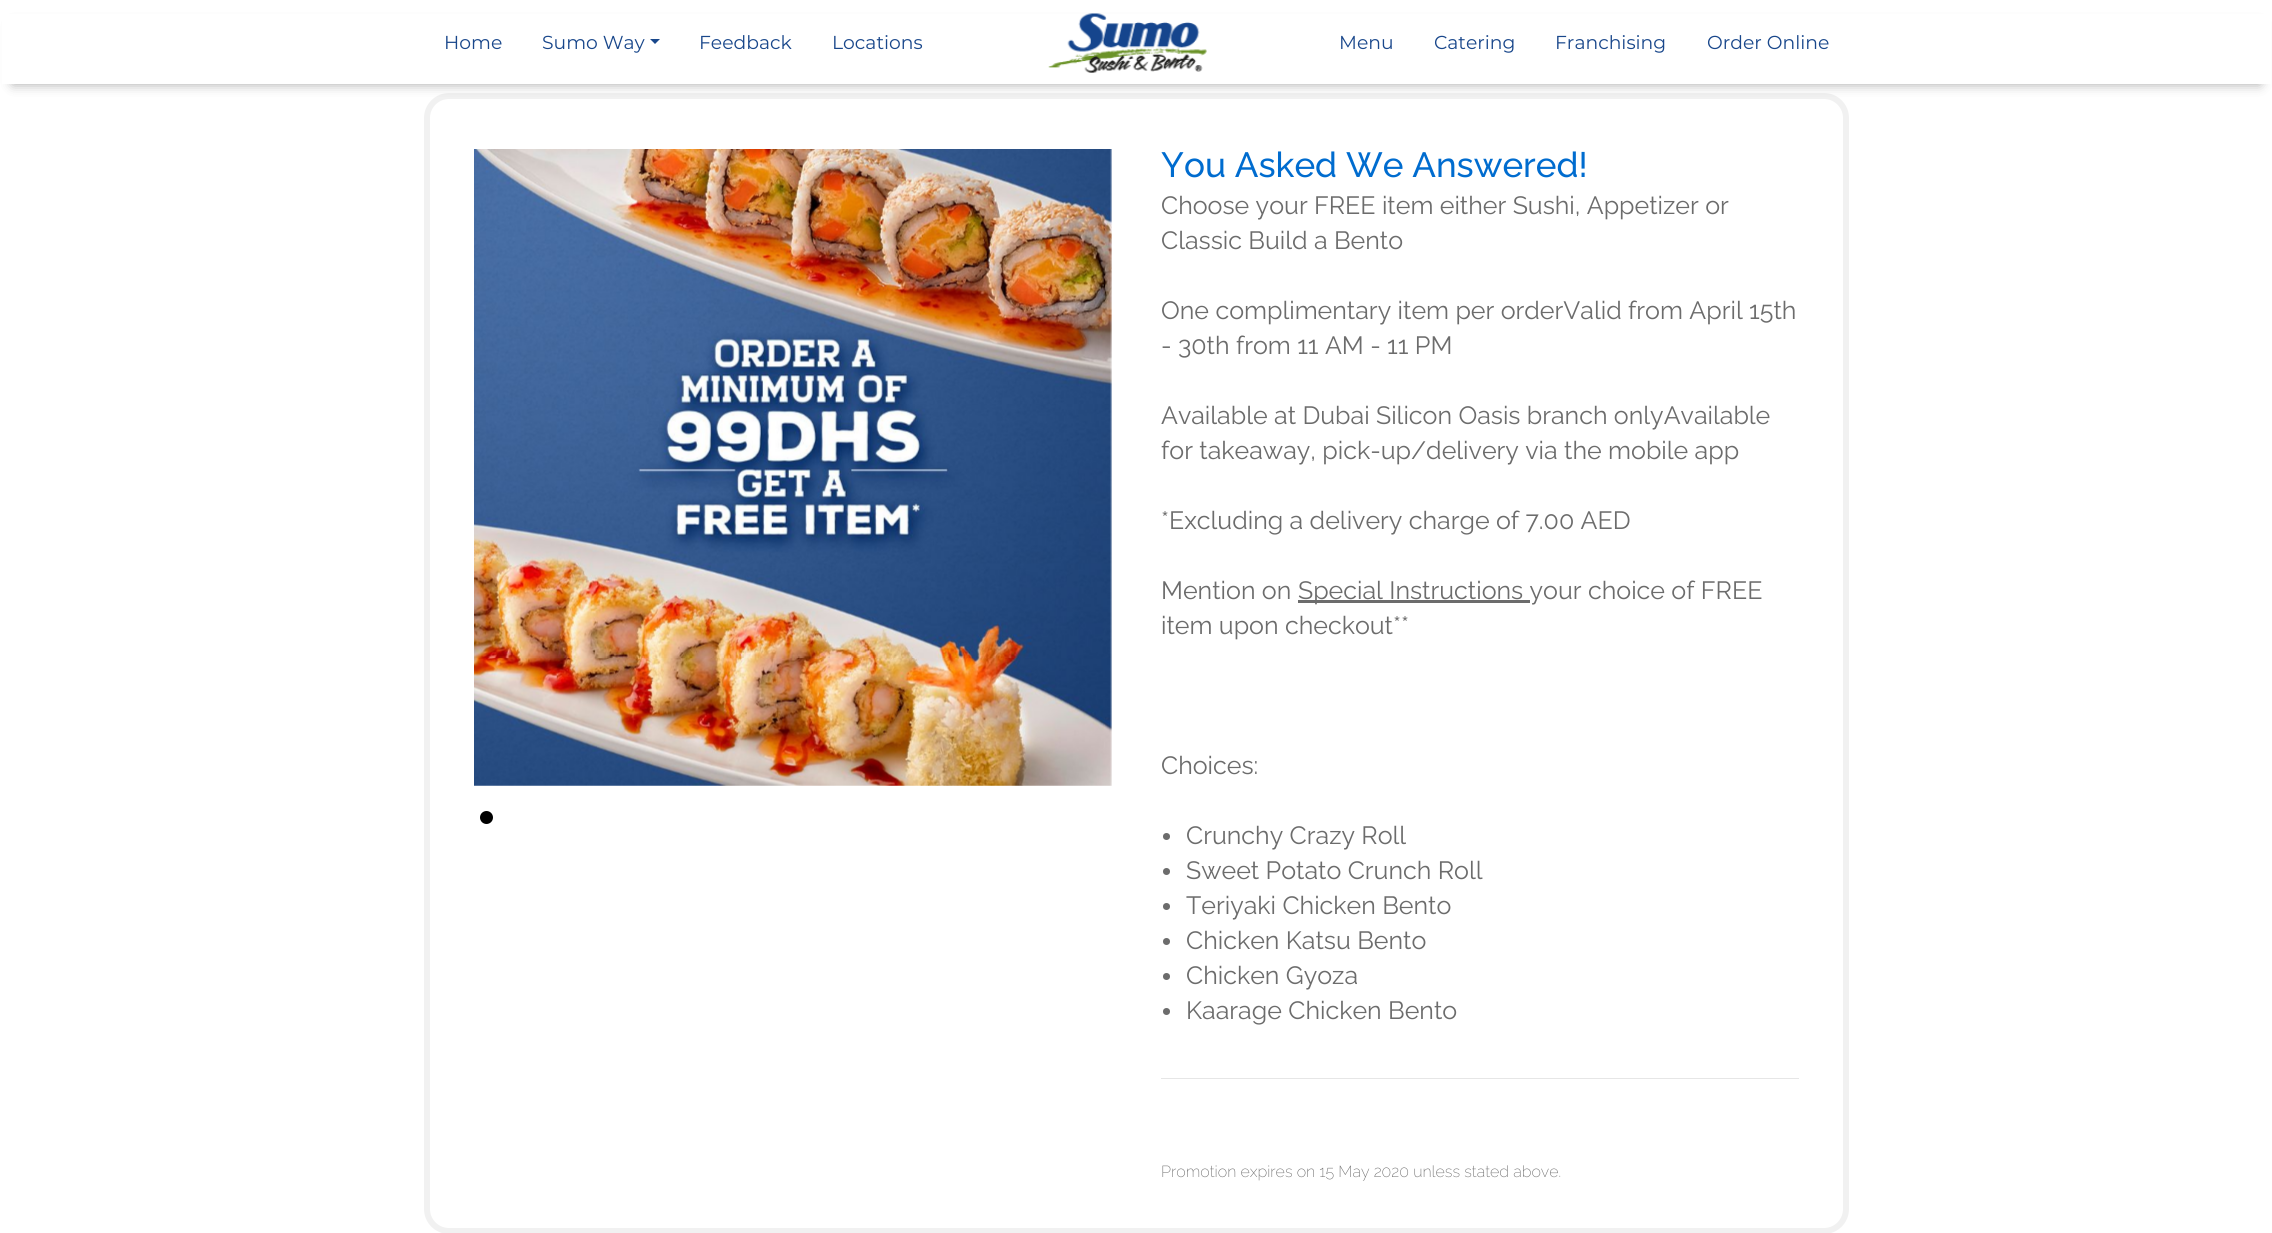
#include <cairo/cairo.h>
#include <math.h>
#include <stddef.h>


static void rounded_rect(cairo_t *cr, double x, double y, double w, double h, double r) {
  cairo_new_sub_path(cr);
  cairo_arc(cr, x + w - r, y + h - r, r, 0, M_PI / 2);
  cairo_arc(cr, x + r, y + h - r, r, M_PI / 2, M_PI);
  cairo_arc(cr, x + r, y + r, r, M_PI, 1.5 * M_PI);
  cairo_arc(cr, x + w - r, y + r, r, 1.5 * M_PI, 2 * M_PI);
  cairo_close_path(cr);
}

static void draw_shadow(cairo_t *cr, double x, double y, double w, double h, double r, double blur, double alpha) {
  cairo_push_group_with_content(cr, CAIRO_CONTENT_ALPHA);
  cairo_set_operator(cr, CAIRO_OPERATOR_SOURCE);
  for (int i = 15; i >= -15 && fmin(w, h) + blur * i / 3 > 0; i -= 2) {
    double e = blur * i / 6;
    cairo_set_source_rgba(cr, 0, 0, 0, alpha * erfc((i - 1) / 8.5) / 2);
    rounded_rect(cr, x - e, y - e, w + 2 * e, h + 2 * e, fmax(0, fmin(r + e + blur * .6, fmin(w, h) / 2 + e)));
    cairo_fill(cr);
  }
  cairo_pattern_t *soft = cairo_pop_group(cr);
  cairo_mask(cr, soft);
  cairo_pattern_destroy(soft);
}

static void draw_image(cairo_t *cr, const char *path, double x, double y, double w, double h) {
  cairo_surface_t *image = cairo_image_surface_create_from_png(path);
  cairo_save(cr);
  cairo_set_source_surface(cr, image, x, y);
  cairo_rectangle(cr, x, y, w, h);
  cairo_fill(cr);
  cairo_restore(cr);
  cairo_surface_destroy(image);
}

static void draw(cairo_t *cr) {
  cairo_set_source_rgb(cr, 1, 1, 1);
  cairo_paint(cr);
  rounded_rect(cr, 427, 96, 1419, 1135, 22);
  cairo_set_source_rgb(cr, 241 / 255.0, 241 / 255.0, 241 / 255.0);
  cairo_set_line_width(cr, 6);
  cairo_stroke(cr);
  cairo_set_source_rgb(cr, 0, 0, 0);
  draw_shadow(cr, 13, 25, 2247, 59, 0, 6, 0.35);
  cairo_set_source_rgb(cr, 1, 1, 1);
  cairo_rectangle(cr, 2, 14, 2269, 70);
  cairo_fill(cr);
  draw_image(cr, "images/1.png", 1048, 13, 159, 60);
  cairo_set_source_rgb(cr, 25 / 255.0, 71 / 255.0, 139 / 255.0);
  cairo_new_path(cr);
  cairo_move_to(cr, 650, 39);
  cairo_line_to(cr, 660, 39);
  cairo_line_to(cr, 655, 44);
  cairo_close_path(cr);
  cairo_fill(cr);
  draw_image(cr, "images/2.png", 474, 149, 638, 637);
  cairo_set_source_rgb(cr, 0, 0, 0);
  cairo_arc(cr, 486.5, 817.5, 6.5, 0, 2 * M_PI);
  cairo_fill(cr);
  cairo_set_source_rgb(cr, 108 / 255.0, 108 / 255.0, 108 / 255.0);
  cairo_rectangle(cr, 1298, 600, 232, 3);
  cairo_fill(cr);
  cairo_arc(cr, 1166.5, 836.5, 3.5, 0, 2 * M_PI);
  cairo_fill(cr);
  cairo_arc(cr, 1166.5, 871.5, 3.5, 0, 2 * M_PI);
  cairo_fill(cr);
  cairo_arc(cr, 1166.5, 906.5, 3.5, 0, 2 * M_PI);
  cairo_fill(cr);
  cairo_arc(cr, 1166.5, 941.5, 3.5, 0, 2 * M_PI);
  cairo_fill(cr);
  cairo_arc(cr, 1166.5, 976.5, 3.5, 0, 2 * M_PI);
  cairo_fill(cr);
  cairo_arc(cr, 1166.5, 1011.5, 3.5, 0, 2 * M_PI);
  cairo_fill(cr);
  cairo_set_source_rgb(cr, 230 / 255.0, 230 / 255.0, 230 / 255.0);
  cairo_rectangle(cr, 1161, 1078, 638, 1);
  cairo_fill(cr);
  cairo_select_font_face(cr, "Montserrat", CAIRO_FONT_SLANT_NORMAL, CAIRO_FONT_WEIGHT_NORMAL);
  cairo_set_font_size(cr, 18.75);
  cairo_set_source_rgb(cr, 25 / 255.0, 71 / 255.0, 139 / 255.0);
  cairo_move_to(cr, 444, 49);
  cairo_show_text(cr, "Home");
  cairo_move_to(cr, 542, 49);
  cairo_show_text(cr, "Sumo Way");
  cairo_move_to(cr, 699, 49);
  cairo_show_text(cr, "Feedback");
  cairo_move_to(cr, 832, 49);
  cairo_show_text(cr, "Locations");
  cairo_move_to(cr, 1339, 49);
  cairo_show_text(cr, "Menu");
  cairo_move_to(cr, 1434, 49);
  cairo_show_text(cr, "Catering");
  cairo_move_to(cr, 1555, 49);
  cairo_show_text(cr, "Franchising");
  cairo_move_to(cr, 1707, 49);
  cairo_show_text(cr, "Order Online");
  cairo_select_font_face(cr, "Raleway Medium", CAIRO_FONT_SLANT_NORMAL, CAIRO_FONT_WEIGHT_NORMAL);
  cairo_set_font_size(cr, 35);
  cairo_set_source_rgb(cr, 0, 108 / 255.0, 207 / 255.0);
  cairo_move_to(cr, 1161, 177);
  cairo_show_text(cr, "You Asked We Answered!");
  cairo_select_font_face(cr, "Raleway", CAIRO_FONT_SLANT_NORMAL, CAIRO_FONT_WEIGHT_NORMAL);
  cairo_set_font_size(cr, 25);
  cairo_set_source_rgb(cr, 108 / 255.0, 108 / 255.0, 108 / 255.0);
  cairo_move_to(cr, 1161, 214);
  cairo_show_text(cr, "Choose your FREE item either Sushi, Appetizer or");
  cairo_move_to(cr, 1161, 249);
  cairo_show_text(cr, "Classic Build a Bento");
  cairo_move_to(cr, 1161, 319);
  cairo_show_text(cr, "One complimentary item per orderValid from April 15th");
  cairo_move_to(cr, 1161, 354);
  cairo_show_text(cr, "- 30th from 11 AM - 11 PM");
  cairo_move_to(cr, 1161, 424);
  cairo_show_text(cr, "Available at Dubai Silicon Oasis branch onlyAvailable");
  cairo_move_to(cr, 1161, 459);
  cairo_show_text(cr, "for takeaway, pick-up/delivery via the mobile app");
  cairo_move_to(cr, 1161, 529);
  cairo_show_text(cr, "*Excluding a delivery charge of 7.00 AED");
  cairo_move_to(cr, 1161, 599);
  cairo_show_text(cr, "Mention on");
  cairo_move_to(cr, 1298, 599);
  cairo_show_text(cr, "Special Instructions your choice of FREE");
  cairo_move_to(cr, 1161, 634);
  cairo_show_text(cr, "item upon checkout**");
  cairo_move_to(cr, 1161, 774);
  cairo_show_text(cr, "Choices:");
  cairo_move_to(cr, 1186, 844);
  cairo_show_text(cr, "Crunchy Crazy Roll");
  cairo_move_to(cr, 1186, 879);
  cairo_show_text(cr, "Sweet Potato Crunch Roll");
  cairo_move_to(cr, 1186, 914);
  cairo_show_text(cr, "Teriyaki Chicken Bento");
  cairo_move_to(cr, 1186, 949);
  cairo_show_text(cr, "Chicken Katsu Bento");
  cairo_move_to(cr, 1186, 984);
  cairo_show_text(cr, "Chicken Gyoza");
  cairo_move_to(cr, 1186, 1019);
  cairo_show_text(cr, "Kaarage Chicken Bento");
  cairo_select_font_face(cr, "Raleway ExtraLight", CAIRO_FONT_SLANT_NORMAL, CAIRO_FONT_WEIGHT_NORMAL);
  cairo_set_font_size(cr, 16);
  cairo_move_to(cr, 1161, 1177);
  cairo_show_text(cr, "Promotion expires on 15 May 2020 unless stated above.");
}

int main(void) {
  cairo_surface_t *surface = cairo_image_surface_create(CAIRO_FORMAT_RGB24, 2272, 1233);
  cairo_t *cr = cairo_create(surface);
  cairo_font_options_t *options = cairo_font_options_create();
  cairo_font_options_set_hint_metrics(options, CAIRO_HINT_METRICS_OFF);
  cairo_font_options_set_hint_style(options, CAIRO_HINT_STYLE_NONE);
  cairo_set_font_options(cr, options);
  cairo_set_miter_limit(cr, 4);
  draw(cr);
  cairo_surface_write_to_png(surface, "out.png");
  cairo_font_options_destroy(options);
  cairo_destroy(cr);
  cairo_surface_destroy(surface);
  return 0;
}
